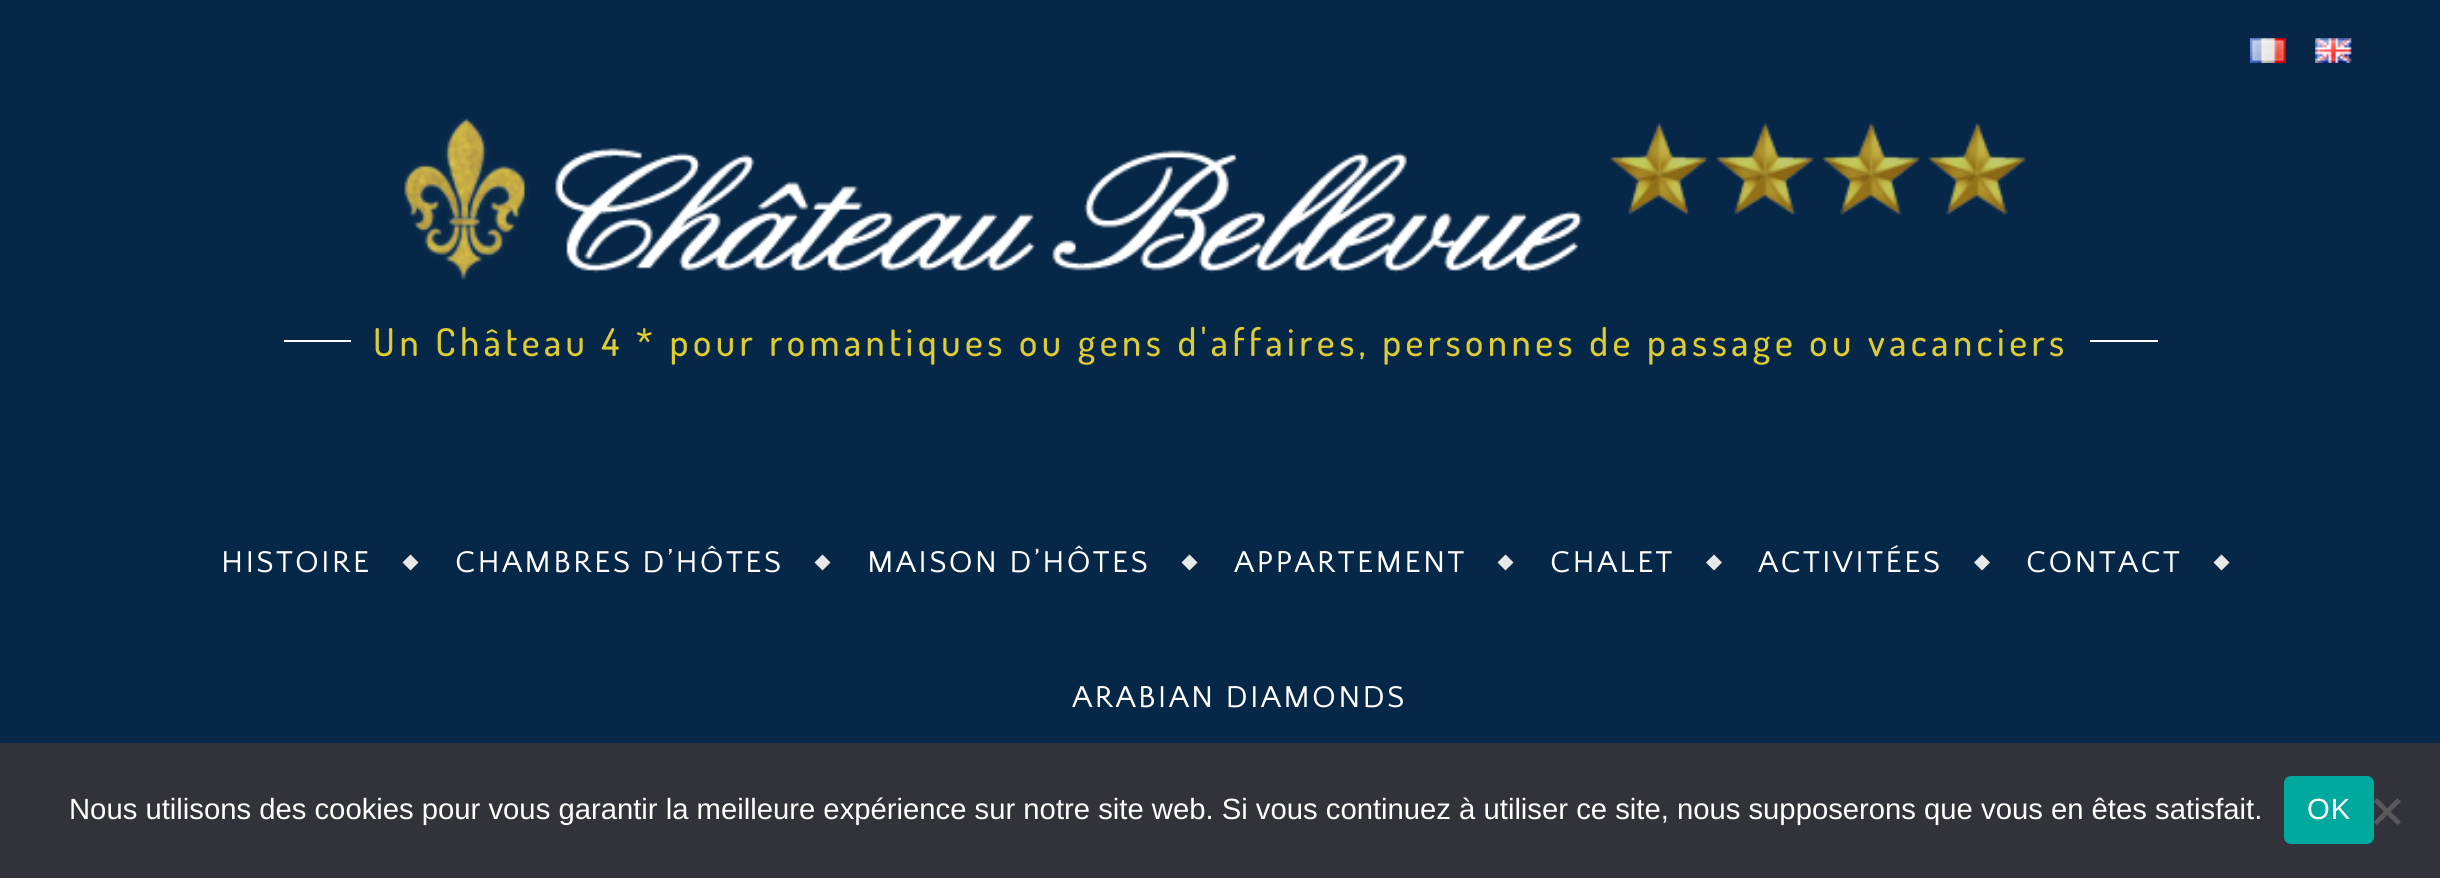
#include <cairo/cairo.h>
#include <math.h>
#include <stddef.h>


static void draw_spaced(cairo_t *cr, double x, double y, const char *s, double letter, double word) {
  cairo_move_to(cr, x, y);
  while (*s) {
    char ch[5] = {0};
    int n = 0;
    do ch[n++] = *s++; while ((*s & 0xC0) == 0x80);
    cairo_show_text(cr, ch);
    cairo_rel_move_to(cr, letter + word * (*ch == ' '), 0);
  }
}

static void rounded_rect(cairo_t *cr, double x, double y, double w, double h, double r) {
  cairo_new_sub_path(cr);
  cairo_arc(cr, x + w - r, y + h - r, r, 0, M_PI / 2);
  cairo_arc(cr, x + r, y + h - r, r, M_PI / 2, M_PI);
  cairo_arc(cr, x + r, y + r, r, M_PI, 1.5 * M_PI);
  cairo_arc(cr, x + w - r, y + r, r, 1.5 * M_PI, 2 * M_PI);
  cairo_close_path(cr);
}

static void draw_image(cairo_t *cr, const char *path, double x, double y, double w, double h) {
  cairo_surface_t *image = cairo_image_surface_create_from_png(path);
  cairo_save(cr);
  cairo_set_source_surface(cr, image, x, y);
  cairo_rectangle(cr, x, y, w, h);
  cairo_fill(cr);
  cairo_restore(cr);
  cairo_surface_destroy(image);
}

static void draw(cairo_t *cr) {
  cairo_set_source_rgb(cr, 6 / 255.0, 39 / 255.0, 72 / 255.0);
  cairo_paint(cr);
  draw_image(cr, "images/1.png", 2250, 38, 36, 25);
  draw_image(cr, "images/2.png", 2315, 38, 37, 25);
  draw_image(cr, "images/3.png", 404, 118, 1622, 162);
  cairo_set_source_rgb(cr, 1, 1, 1);
  cairo_rectangle(cr, 284, 340, 67, 2);
  cairo_fill(cr);
  cairo_rectangle(cr, 2090, 340, 68, 2);
  cairo_fill(cr);
  cairo_set_source_rgb(cr, 232 / 255.0, 232 / 255.0, 232 / 255.0);
  cairo_new_path(cr);
  cairo_move_to(cr, 402.5, 562.5);
  cairo_line_to(cr, 410.5, 554.5);
  cairo_line_to(cr, 418.5, 562.5);
  cairo_line_to(cr, 410.5, 570.5);
  cairo_close_path(cr);
  cairo_fill(cr);
  cairo_new_path(cr);
  cairo_move_to(cr, 814.5, 562.5);
  cairo_line_to(cr, 822.5, 554.5);
  cairo_line_to(cr, 830.5, 562.5);
  cairo_line_to(cr, 822.5, 570.5);
  cairo_close_path(cr);
  cairo_fill(cr);
  cairo_new_path(cr);
  cairo_move_to(cr, 1181.5, 562.5);
  cairo_line_to(cr, 1189.5, 554.5);
  cairo_line_to(cr, 1197.5, 562.5);
  cairo_line_to(cr, 1189.5, 570.5);
  cairo_close_path(cr);
  cairo_fill(cr);
  cairo_new_path(cr);
  cairo_move_to(cr, 1497.5, 562.5);
  cairo_line_to(cr, 1505.5, 554.5);
  cairo_line_to(cr, 1513.5, 562.5);
  cairo_line_to(cr, 1505.5, 570.5);
  cairo_close_path(cr);
  cairo_fill(cr);
  cairo_new_path(cr);
  cairo_move_to(cr, 1706, 562.5);
  cairo_line_to(cr, 1714, 554.5);
  cairo_line_to(cr, 1722, 562.5);
  cairo_line_to(cr, 1714, 570.5);
  cairo_close_path(cr);
  cairo_fill(cr);
  cairo_new_path(cr);
  cairo_move_to(cr, 1974, 562.5);
  cairo_line_to(cr, 1982, 554.5);
  cairo_line_to(cr, 1990, 562.5);
  cairo_line_to(cr, 1982, 570.5);
  cairo_close_path(cr);
  cairo_fill(cr);
  cairo_new_path(cr);
  cairo_move_to(cr, 2213.5, 562.5);
  cairo_line_to(cr, 2221.5, 554.5);
  cairo_line_to(cr, 2229.5, 562.5);
  cairo_line_to(cr, 2221.5, 570.5);
  cairo_close_path(cr);
  cairo_fill(cr);
  cairo_set_source_rgb(cr, 50 / 255.0, 50 / 255.0, 58 / 255.0);
  cairo_rectangle(cr, 0, 743, 2440, 135);
  cairo_fill(cr);
  cairo_set_source_rgb(cr, 0, 169 / 255.0, 157 / 255.0);
  rounded_rect(cr, 2284, 776, 90, 68, 7);
  cairo_fill(cr);
  cairo_set_source_rgb(cr, 89 / 255.0, 89 / 255.0, 93 / 255.0);
  cairo_new_path(cr);
  cairo_move_to(cr, 2397.5, 798);
  cairo_line_to(cr, 2401, 801.5);
  cairo_line_to(cr, 2377, 825);
  cairo_line_to(cr, 2373.5, 822);
  cairo_close_path(cr);
  cairo_fill(cr);
  cairo_new_path(cr);
  cairo_move_to(cr, 2373.5, 801.5);
  cairo_line_to(cr, 2377, 798);
  cairo_line_to(cr, 2401, 822);
  cairo_line_to(cr, 2397.5, 825);
  cairo_close_path(cr);
  cairo_fill(cr);
  cairo_select_font_face(cr, "Dosis Medium", CAIRO_FONT_SLANT_NORMAL, CAIRO_FONT_WEIGHT_NORMAL);
  cairo_set_font_size(cr, 38.25);
  cairo_set_source_rgb(cr, 221 / 255.0, 204 / 255.0, 51 / 255.0);
  draw_spaced(cr, 373, 356, "Un Château 4 * pour romantiques ou gens d'affaires, personnes de passage ou vacanciers", 4.5, 0);
  cairo_select_font_face(cr, "Quattrocento Sans", CAIRO_FONT_SLANT_NORMAL, CAIRO_FONT_WEIGHT_NORMAL);
  cairo_set_font_size(cr, 31.5);
  cairo_set_source_rgb(cr, 1, 1, 1);
  draw_spaced(cr, 221, 572, "HISTOIRE", 2.25, 0);
  draw_spaced(cr, 455, 572, "CHAMBRES D’HÔTES", 2.25, 0);
  draw_spaced(cr, 867, 572, "MAISON D’HÔTES", 2.25, 0);
  draw_spaced(cr, 1234, 572, "APPARTEMENT", 2.25, 0);
  draw_spaced(cr, 1550, 572, "CHALET", 2.25, 0);
  draw_spaced(cr, 1758, 572, "ACTIVITÉES", 2.25, 0);
  draw_spaced(cr, 2026, 572, "CONTACT", 2.25, 0);
  draw_spaced(cr, 1072, 707, "ARABIAN DIAMONDS", 2.25, 0);
  cairo_select_font_face(cr, "Liberation Sans", CAIRO_FONT_SLANT_NORMAL, CAIRO_FONT_WEIGHT_NORMAL);
  cairo_set_font_size(cr, 29.25);
  cairo_move_to(cr, 69, 819);
  cairo_show_text(cr, "Nous utilisons des cookies pour vous garantir la meilleure expérience sur notre site web. Si vous continuez à utiliser ce site, nous supposerons que vous en êtes satisfait.");
  draw_spaced(cr, 2307, 819, "OK", 1, 0);
}

int main(void) {
  cairo_surface_t *surface = cairo_image_surface_create(CAIRO_FORMAT_RGB24, 2440, 878);
  cairo_t *cr = cairo_create(surface);
  cairo_font_options_t *options = cairo_font_options_create();
  cairo_font_options_set_hint_metrics(options, CAIRO_HINT_METRICS_OFF);
  cairo_font_options_set_hint_style(options, CAIRO_HINT_STYLE_NONE);
  cairo_set_font_options(cr, options);
  cairo_set_miter_limit(cr, 4);
  draw(cr);
  cairo_surface_write_to_png(surface, "out.png");
  cairo_font_options_destroy(options);
  cairo_destroy(cr);
  cairo_surface_destroy(surface);
  return 0;
}
